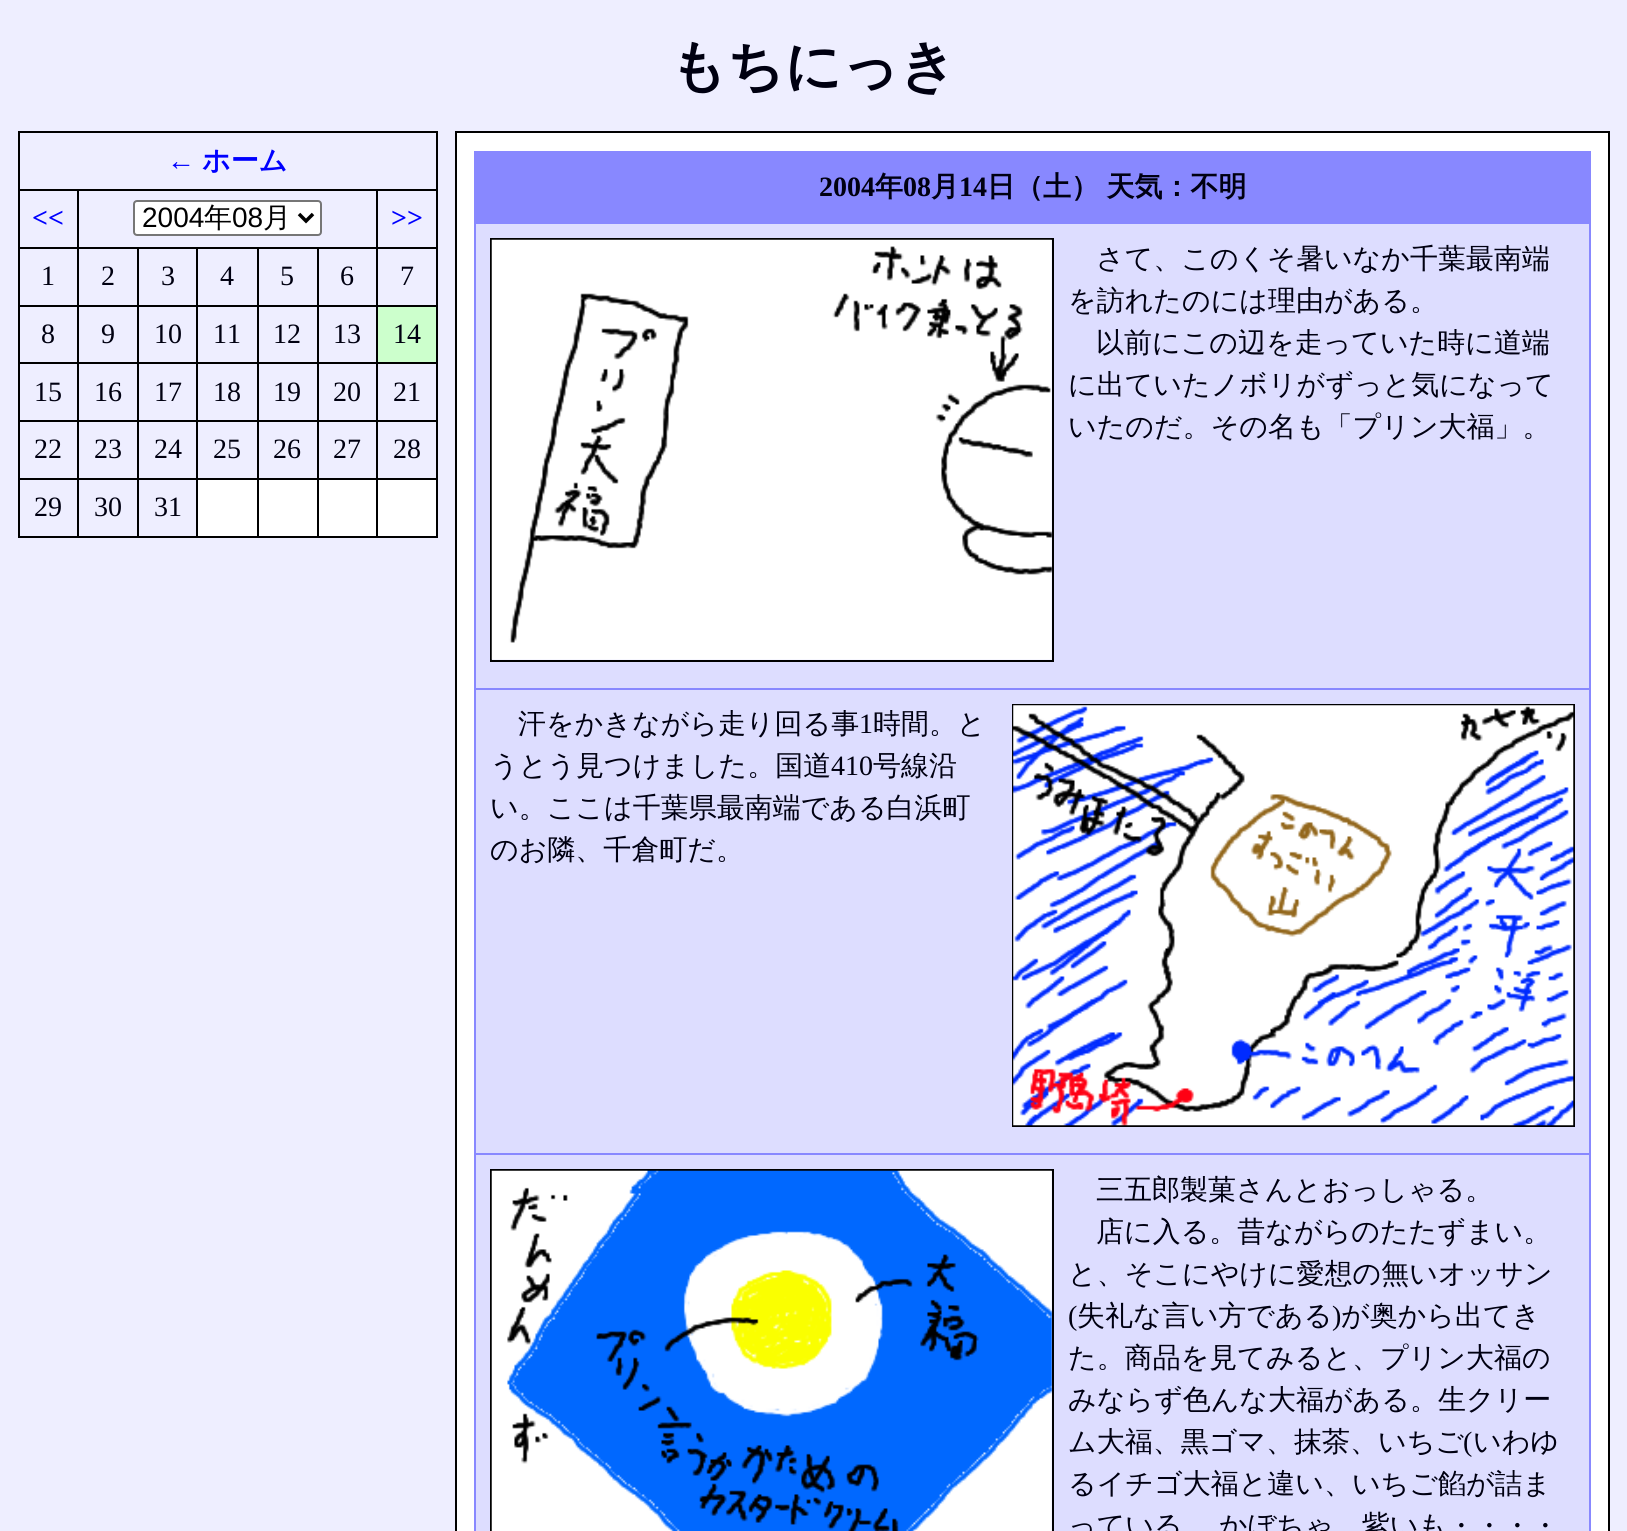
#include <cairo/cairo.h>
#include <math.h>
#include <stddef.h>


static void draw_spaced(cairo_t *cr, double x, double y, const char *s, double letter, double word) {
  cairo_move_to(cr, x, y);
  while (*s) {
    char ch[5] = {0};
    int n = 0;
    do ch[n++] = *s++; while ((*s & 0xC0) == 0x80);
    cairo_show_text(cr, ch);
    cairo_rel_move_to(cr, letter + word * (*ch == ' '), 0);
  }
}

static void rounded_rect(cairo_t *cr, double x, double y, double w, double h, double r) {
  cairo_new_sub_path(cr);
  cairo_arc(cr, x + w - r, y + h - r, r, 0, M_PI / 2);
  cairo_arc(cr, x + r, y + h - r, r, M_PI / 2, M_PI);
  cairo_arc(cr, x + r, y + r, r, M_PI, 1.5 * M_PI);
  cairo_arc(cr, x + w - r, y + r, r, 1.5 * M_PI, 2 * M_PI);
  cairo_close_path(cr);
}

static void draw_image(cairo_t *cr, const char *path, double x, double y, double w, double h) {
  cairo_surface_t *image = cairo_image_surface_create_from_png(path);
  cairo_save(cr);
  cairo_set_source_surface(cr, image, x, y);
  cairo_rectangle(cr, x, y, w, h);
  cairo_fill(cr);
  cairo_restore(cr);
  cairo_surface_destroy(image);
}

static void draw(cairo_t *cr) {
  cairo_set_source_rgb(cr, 238 / 255.0, 238 / 255.0, 1);
  cairo_paint(cr);
  cairo_set_source_rgb(cr, 0, 0, 0);
  cairo_rectangle(cr, 18, 131, 420, 2);
  cairo_fill(cr);
  cairo_rectangle(cr, 376, 189, 62, 2);
  cairo_fill(cr);
  cairo_rectangle(cr, 376, 247, 62, 2);
  cairo_fill(cr);
  cairo_rectangle(cr, 376, 305, 62, 2);
  cairo_fill(cr);
  cairo_rectangle(cr, 376, 362, 62, 2);
  cairo_fill(cr);
  cairo_rectangle(cr, 376, 420, 62, 2);
  cairo_fill(cr);
  cairo_rectangle(cr, 376, 478, 62, 2);
  cairo_fill(cr);
  cairo_rectangle(cr, 436, 478, 2, 59);
  cairo_fill(cr);
  cairo_rectangle(cr, 436, 420, 2, 60);
  cairo_fill(cr);
  cairo_rectangle(cr, 436, 362, 2, 60);
  cairo_fill(cr);
  cairo_rectangle(cr, 436, 305, 2, 59);
  cairo_fill(cr);
  cairo_rectangle(cr, 436, 247, 2, 59);
  cairo_fill(cr);
  cairo_rectangle(cr, 436, 189, 2, 60);
  cairo_fill(cr);
  cairo_rectangle(cr, 436, 131, 2, 60);
  cairo_fill(cr);
  cairo_rectangle(cr, 376, 536, 62, 2);
  cairo_fill(cr);
  cairo_rectangle(cr, 376, 478, 2, 59);
  cairo_fill(cr);
  cairo_rectangle(cr, 317, 478, 61, 2);
  cairo_fill(cr);
  cairo_rectangle(cr, 376, 420, 2, 60);
  cairo_fill(cr);
  cairo_rectangle(cr, 317, 420, 61, 2);
  cairo_fill(cr);
  cairo_rectangle(cr, 376, 362, 2, 60);
  cairo_fill(cr);
  cairo_rectangle(cr, 317, 362, 61, 2);
  cairo_fill(cr);
  cairo_rectangle(cr, 376, 305, 2, 59);
  cairo_fill(cr);
  cairo_rectangle(cr, 317, 305, 61, 2);
  cairo_fill(cr);
  cairo_rectangle(cr, 376, 247, 2, 59);
  cairo_fill(cr);
  cairo_rectangle(cr, 317, 247, 61, 2);
  cairo_fill(cr);
  cairo_rectangle(cr, 376, 189, 2, 60);
  cairo_fill(cr);
  cairo_rectangle(cr, 77, 189, 301, 2);
  cairo_fill(cr);
  cairo_rectangle(cr, 317, 536, 61, 2);
  cairo_fill(cr);
  cairo_rectangle(cr, 317, 478, 2, 59);
  cairo_fill(cr);
  cairo_rectangle(cr, 257, 478, 62, 2);
  cairo_fill(cr);
  cairo_rectangle(cr, 317, 420, 2, 60);
  cairo_fill(cr);
  cairo_rectangle(cr, 257, 420, 62, 2);
  cairo_fill(cr);
  cairo_rectangle(cr, 317, 362, 2, 60);
  cairo_fill(cr);
  cairo_rectangle(cr, 257, 362, 62, 2);
  cairo_fill(cr);
  cairo_rectangle(cr, 317, 305, 2, 59);
  cairo_fill(cr);
  cairo_rectangle(cr, 257, 305, 62, 2);
  cairo_fill(cr);
  cairo_rectangle(cr, 317, 247, 2, 59);
  cairo_fill(cr);
  cairo_rectangle(cr, 257, 247, 62, 2);
  cairo_fill(cr);
  cairo_rectangle(cr, 257, 536, 62, 2);
  cairo_fill(cr);
  cairo_rectangle(cr, 257, 478, 2, 59);
  cairo_fill(cr);
  cairo_rectangle(cr, 196, 478, 63, 2);
  cairo_fill(cr);
  cairo_rectangle(cr, 257, 420, 2, 60);
  cairo_fill(cr);
  cairo_rectangle(cr, 196, 420, 63, 2);
  cairo_fill(cr);
  cairo_rectangle(cr, 257, 362, 2, 60);
  cairo_fill(cr);
  cairo_rectangle(cr, 196, 362, 63, 2);
  cairo_fill(cr);
  cairo_rectangle(cr, 257, 305, 2, 59);
  cairo_fill(cr);
  cairo_rectangle(cr, 196, 305, 63, 2);
  cairo_fill(cr);
  cairo_rectangle(cr, 257, 247, 2, 59);
  cairo_fill(cr);
  cairo_rectangle(cr, 196, 247, 63, 2);
  cairo_fill(cr);
  cairo_rectangle(cr, 196, 536, 63, 2);
  cairo_fill(cr);
  cairo_rectangle(cr, 196, 478, 2, 59);
  cairo_fill(cr);
  cairo_rectangle(cr, 137, 478, 61, 2);
  cairo_fill(cr);
  cairo_rectangle(cr, 196, 420, 2, 60);
  cairo_fill(cr);
  cairo_rectangle(cr, 137, 420, 61, 2);
  cairo_fill(cr);
  cairo_rectangle(cr, 196, 362, 2, 60);
  cairo_fill(cr);
  cairo_rectangle(cr, 137, 362, 61, 2);
  cairo_fill(cr);
  cairo_rectangle(cr, 196, 305, 2, 59);
  cairo_fill(cr);
  cairo_rectangle(cr, 137, 305, 61, 2);
  cairo_fill(cr);
  cairo_rectangle(cr, 196, 247, 2, 59);
  cairo_fill(cr);
  cairo_rectangle(cr, 137, 247, 61, 2);
  cairo_fill(cr);
  cairo_rectangle(cr, 137, 536, 61, 2);
  cairo_fill(cr);
  cairo_rectangle(cr, 137, 478, 2, 59);
  cairo_fill(cr);
  cairo_rectangle(cr, 77, 478, 61, 2);
  cairo_fill(cr);
  cairo_rectangle(cr, 137, 420, 2, 60);
  cairo_fill(cr);
  cairo_rectangle(cr, 77, 420, 61, 2);
  cairo_fill(cr);
  cairo_rectangle(cr, 137, 362, 2, 60);
  cairo_fill(cr);
  cairo_rectangle(cr, 77, 362, 61, 2);
  cairo_fill(cr);
  cairo_rectangle(cr, 137, 305, 2, 59);
  cairo_fill(cr);
  cairo_rectangle(cr, 77, 305, 61, 2);
  cairo_fill(cr);
  cairo_rectangle(cr, 137, 247, 2, 59);
  cairo_fill(cr);
  cairo_rectangle(cr, 77, 247, 61, 2);
  cairo_fill(cr);
  cairo_rectangle(cr, 77, 536, 61, 2);
  cairo_fill(cr);
  cairo_rectangle(cr, 77, 478, 2, 59);
  cairo_fill(cr);
  cairo_rectangle(cr, 18, 478, 61, 2);
  cairo_fill(cr);
  cairo_rectangle(cr, 77, 420, 2, 60);
  cairo_fill(cr);
  cairo_rectangle(cr, 18, 420, 61, 2);
  cairo_fill(cr);
  cairo_rectangle(cr, 77, 362, 2, 60);
  cairo_fill(cr);
  cairo_rectangle(cr, 18, 362, 61, 2);
  cairo_fill(cr);
  cairo_rectangle(cr, 77, 305, 2, 59);
  cairo_fill(cr);
  cairo_rectangle(cr, 18, 305, 61, 2);
  cairo_fill(cr);
  cairo_rectangle(cr, 77, 247, 2, 59);
  cairo_fill(cr);
  cairo_rectangle(cr, 18, 247, 61, 2);
  cairo_fill(cr);
  cairo_rectangle(cr, 77, 189, 2, 60);
  cairo_fill(cr);
  cairo_rectangle(cr, 18, 189, 61, 2);
  cairo_fill(cr);
  cairo_rectangle(cr, 18, 536, 61, 2);
  cairo_fill(cr);
  cairo_rectangle(cr, 18, 478, 2, 59);
  cairo_fill(cr);
  cairo_rectangle(cr, 18, 420, 2, 60);
  cairo_fill(cr);
  cairo_rectangle(cr, 18, 362, 2, 60);
  cairo_fill(cr);
  cairo_rectangle(cr, 18, 305, 2, 59);
  cairo_fill(cr);
  cairo_rectangle(cr, 18, 247, 2, 59);
  cairo_fill(cr);
  cairo_rectangle(cr, 18, 189, 2, 60);
  cairo_fill(cr);
  cairo_rectangle(cr, 18, 131, 2, 60);
  cairo_fill(cr);
  cairo_set_source_rgb(cr, 1, 1, 1);
  rounded_rect(cr, 134, 201, 187, 34, 3);
  cairo_fill_preserve(cr);
  cairo_set_source_rgb(cr, 118 / 255.0, 118 / 255.0, 118 / 255.0);
  cairo_stroke(cr);
  cairo_new_path(cr);
  cairo_move_to(cr, 299, 214);
  cairo_line_to(cr, 306, 221);
  cairo_line_to(cr, 313, 214);
  cairo_set_source_rgb(cr, 0, 0, 0);
  cairo_set_line_width(cr, 3.5);
  cairo_stroke(cr);
  cairo_set_source_rgb(cr, 204 / 255.0, 1, 204 / 255.0);
  cairo_rectangle(cr, 378, 307, 58, 55);
  cairo_fill(cr);
  cairo_set_source_rgb(cr, 1, 1, 1);
  cairo_rectangle(cr, 198, 480, 59, 56);
  cairo_fill(cr);
  cairo_rectangle(cr, 259, 480, 58, 56);
  cairo_fill(cr);
  cairo_rectangle(cr, 319, 480, 57, 56);
  cairo_fill(cr);
  cairo_rectangle(cr, 378, 480, 58, 56);
  cairo_fill(cr);
  cairo_rectangle(cr, 456, 132, 1153, 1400);
  cairo_fill_preserve(cr);
  cairo_set_source_rgb(cr, 0, 0, 0);
  cairo_set_line_width(cr, 2);
  cairo_stroke(cr);
  cairo_set_source_rgb(cr, 221 / 255.0, 221 / 255.0, 1);
  cairo_rectangle(cr, 476, 224, 1113, 1307);
  cairo_fill(cr);
  cairo_set_source_rgb(cr, 136 / 255.0, 136 / 255.0, 1);
  cairo_rectangle(cr, 476, 153, 1115, 69);
  cairo_fill(cr);
  cairo_rectangle(cr, 474, 151, 1117, 2);
  cairo_fill(cr);
  cairo_rectangle(cr, 474, 222, 1117, 2);
  cairo_fill(cr);
  cairo_rectangle(cr, 474, 688, 1117, 2);
  cairo_fill(cr);
  cairo_rectangle(cr, 474, 1153, 1117, 2);
  cairo_fill(cr);
  cairo_rectangle(cr, 474, 1153, 2, 378);
  cairo_fill(cr);
  cairo_rectangle(cr, 474, 688, 2, 467);
  cairo_fill(cr);
  cairo_rectangle(cr, 474, 222, 2, 468);
  cairo_fill(cr);
  cairo_rectangle(cr, 474, 151, 2, 73);
  cairo_fill(cr);
  cairo_rectangle(cr, 1589, 1153, 2, 378);
  cairo_fill(cr);
  cairo_rectangle(cr, 1589, 688, 2, 467);
  cairo_fill(cr);
  cairo_rectangle(cr, 1589, 222, 2, 468);
  cairo_fill(cr);
  cairo_rectangle(cr, 491, 239, 562, 422);
  cairo_set_source_rgb(cr, 0, 0, 0);
  cairo_stroke(cr);
  draw_image(cr, "images/1.png", 491, 239, 561, 421);
  cairo_rectangle(cr, 1013, 705, 561, 421);
  cairo_stroke(cr);
  draw_image(cr, "images/2.png", 1013, 705, 561, 421);
  cairo_rectangle(cr, 491, 1170, 562, 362);
  cairo_stroke(cr);
  draw_image(cr, "images/3.png", 491, 1170, 561, 361);
  cairo_select_font_face(cr, "WenQuanYi Zen Hei", CAIRO_FONT_SLANT_NORMAL, CAIRO_FONT_WEIGHT_BOLD);
  cairo_set_font_size(cr, 56);
  cairo_set_source_rgb(cr, 0, 0, 17 / 255.0);
  cairo_move_to(cr, 670, 85);
  cairo_show_text(cr, "もちにっき");
  cairo_select_font_face(cr, "Liberation Serif", CAIRO_FONT_SLANT_NORMAL, CAIRO_FONT_WEIGHT_BOLD);
  cairo_set_font_size(cr, 28);
  cairo_set_source_rgb(cr, 0, 0, 1);
  cairo_move_to(cr, 167, 170);
  cairo_show_text(cr, "←");
  cairo_select_font_face(cr, "WenQuanYi Zen Hei", CAIRO_FONT_SLANT_NORMAL, CAIRO_FONT_WEIGHT_BOLD);
  cairo_move_to(cr, 202, 170);
  cairo_show_text(cr, "ホーム");
  cairo_select_font_face(cr, "Liberation Serif", CAIRO_FONT_SLANT_NORMAL, CAIRO_FONT_WEIGHT_BOLD);
  cairo_move_to(cr, 32, 227);
  cairo_show_text(cr, "<<");
  cairo_select_font_face(cr, "Liberation Sans", CAIRO_FONT_SLANT_NORMAL, CAIRO_FONT_WEIGHT_NORMAL);
  cairo_set_source_rgb(cr, 0, 0, 0);
  cairo_move_to(cr, 142, 227);
  cairo_show_text(cr, "2004");
  cairo_select_font_face(cr, "WenQuanYi Zen Hei Medium", CAIRO_FONT_SLANT_NORMAL, CAIRO_FONT_WEIGHT_NORMAL);
  cairo_move_to(cr, 204, 227);
  cairo_show_text(cr, "年");
  cairo_select_font_face(cr, "Liberation Sans", CAIRO_FONT_SLANT_NORMAL, CAIRO_FONT_WEIGHT_NORMAL);
  cairo_move_to(cr, 232, 227);
  cairo_show_text(cr, "08");
  cairo_select_font_face(cr, "WenQuanYi Zen Hei Medium", CAIRO_FONT_SLANT_NORMAL, CAIRO_FONT_WEIGHT_NORMAL);
  cairo_move_to(cr, 263, 227);
  cairo_show_text(cr, "月");
  cairo_select_font_face(cr, "Liberation Serif", CAIRO_FONT_SLANT_NORMAL, CAIRO_FONT_WEIGHT_BOLD);
  cairo_set_source_rgb(cr, 0, 0, 1);
  cairo_move_to(cr, 391, 227);
  cairo_show_text(cr, ">>");
  cairo_select_font_face(cr, "Liberation Serif", CAIRO_FONT_SLANT_NORMAL, CAIRO_FONT_WEIGHT_NORMAL);
  cairo_set_source_rgb(cr, 0, 0, 17 / 255.0);
  cairo_move_to(cr, 41, 285);
  cairo_show_text(cr, "1");
  cairo_move_to(cr, 101, 285);
  cairo_show_text(cr, "2");
  cairo_move_to(cr, 161, 285);
  cairo_show_text(cr, "3");
  cairo_move_to(cr, 220, 285);
  cairo_show_text(cr, "4");
  cairo_move_to(cr, 280, 285);
  cairo_show_text(cr, "5");
  cairo_move_to(cr, 340, 285);
  cairo_show_text(cr, "6");
  cairo_move_to(cr, 400, 285);
  cairo_show_text(cr, "7");
  cairo_move_to(cr, 41, 343);
  cairo_show_text(cr, "8");
  cairo_move_to(cr, 101, 343);
  cairo_show_text(cr, "9");
  cairo_move_to(cr, 154, 343);
  cairo_show_text(cr, "10");
  cairo_move_to(cr, 213, 343);
  cairo_show_text(cr, "11");
  cairo_move_to(cr, 273, 343);
  cairo_show_text(cr, "12");
  cairo_move_to(cr, 333, 343);
  cairo_show_text(cr, "13");
  cairo_move_to(cr, 393, 343);
  cairo_show_text(cr, "14");
  cairo_move_to(cr, 34, 401);
  cairo_show_text(cr, "15");
  cairo_move_to(cr, 94, 401);
  cairo_show_text(cr, "16");
  cairo_move_to(cr, 154, 401);
  cairo_show_text(cr, "17");
  cairo_move_to(cr, 213, 401);
  cairo_show_text(cr, "18");
  cairo_move_to(cr, 273, 401);
  cairo_show_text(cr, "19");
  cairo_move_to(cr, 333, 401);
  cairo_show_text(cr, "20");
  cairo_move_to(cr, 393, 401);
  cairo_show_text(cr, "21");
  cairo_move_to(cr, 34, 458);
  cairo_show_text(cr, "22");
  cairo_move_to(cr, 94, 458);
  cairo_show_text(cr, "23");
  cairo_move_to(cr, 154, 458);
  cairo_show_text(cr, "24");
  cairo_move_to(cr, 213, 458);
  cairo_show_text(cr, "25");
  cairo_move_to(cr, 273, 458);
  cairo_show_text(cr, "26");
  cairo_move_to(cr, 333, 458);
  cairo_show_text(cr, "27");
  cairo_move_to(cr, 393, 458);
  cairo_show_text(cr, "28");
  cairo_move_to(cr, 34, 516);
  cairo_show_text(cr, "29");
  cairo_move_to(cr, 94, 516);
  cairo_show_text(cr, "30");
  cairo_move_to(cr, 154, 516);
  cairo_show_text(cr, "31");
  cairo_select_font_face(cr, "Liberation Serif", CAIRO_FONT_SLANT_NORMAL, CAIRO_FONT_WEIGHT_BOLD);
  cairo_move_to(cr, 819, 196);
  cairo_show_text(cr, "2004");
  cairo_select_font_face(cr, "WenQuanYi Zen Hei", CAIRO_FONT_SLANT_NORMAL, CAIRO_FONT_WEIGHT_BOLD);
  cairo_move_to(cr, 875, 196);
  cairo_show_text(cr, "年");
  cairo_select_font_face(cr, "Liberation Serif", CAIRO_FONT_SLANT_NORMAL, CAIRO_FONT_WEIGHT_BOLD);
  cairo_move_to(cr, 903, 196);
  cairo_show_text(cr, "08");
  cairo_select_font_face(cr, "WenQuanYi Zen Hei", CAIRO_FONT_SLANT_NORMAL, CAIRO_FONT_WEIGHT_BOLD);
  cairo_move_to(cr, 931, 196);
  cairo_show_text(cr, "月");
  cairo_select_font_face(cr, "Liberation Serif", CAIRO_FONT_SLANT_NORMAL, CAIRO_FONT_WEIGHT_BOLD);
  cairo_move_to(cr, 959, 196);
  cairo_show_text(cr, "14");
  cairo_select_font_face(cr, "WenQuanYi Zen Hei", CAIRO_FONT_SLANT_NORMAL, CAIRO_FONT_WEIGHT_BOLD);
  draw_spaced(cr, 987, 196, "日（土） 天気：不明", 0, -1);
  cairo_select_font_face(cr, "WenQuanYi Zen Hei Medium", CAIRO_FONT_SLANT_NORMAL, CAIRO_FONT_WEIGHT_NORMAL);
  cairo_move_to(cr, 1096, 268);
  cairo_show_text(cr, "さて、このくそ暑いなか千葉最南端");
  cairo_move_to(cr, 1068, 310);
  cairo_show_text(cr, "を訪れたのには理由がある。");
  cairo_move_to(cr, 1096, 352);
  cairo_show_text(cr, "以前にこの辺を走っていた時に道端");
  cairo_move_to(cr, 1068, 394);
  cairo_show_text(cr, "に出ていたノボリがずっと気になって");
  cairo_move_to(cr, 1068, 436);
  cairo_show_text(cr, "いたのだ。その名も「プリン大福」。");
  cairo_move_to(cr, 518, 733);
  cairo_show_text(cr, "汗をかきながら走り回る事");
  cairo_select_font_face(cr, "Liberation Serif", CAIRO_FONT_SLANT_NORMAL, CAIRO_FONT_WEIGHT_NORMAL);
  cairo_move_to(cr, 859, 733);
  cairo_show_text(cr, "1");
  cairo_select_font_face(cr, "WenQuanYi Zen Hei Medium", CAIRO_FONT_SLANT_NORMAL, CAIRO_FONT_WEIGHT_NORMAL);
  cairo_move_to(cr, 873, 733);
  cairo_show_text(cr, "時間。と");
  cairo_move_to(cr, 490, 775);
  cairo_show_text(cr, "うとう見つけました。国道");
  cairo_select_font_face(cr, "Liberation Serif", CAIRO_FONT_SLANT_NORMAL, CAIRO_FONT_WEIGHT_NORMAL);
  cairo_move_to(cr, 831, 775);
  cairo_show_text(cr, "410");
  cairo_select_font_face(cr, "WenQuanYi Zen Hei Medium", CAIRO_FONT_SLANT_NORMAL, CAIRO_FONT_WEIGHT_NORMAL);
  cairo_move_to(cr, 873, 775);
  cairo_show_text(cr, "号線沿");
  cairo_move_to(cr, 490, 817);
  cairo_show_text(cr, "い。ここは千葉県最南端である白浜町");
  cairo_move_to(cr, 490, 859);
  cairo_show_text(cr, "のお隣、千倉町だ。");
  cairo_move_to(cr, 1096, 1199);
  cairo_show_text(cr, "三五郎製菓さんとおっしゃる。");
  cairo_move_to(cr, 1096, 1241);
  cairo_show_text(cr, "店に入る。昔ながらのたたずまい。");
  cairo_move_to(cr, 1068, 1283);
  cairo_show_text(cr, "と、そこにやけに愛想の無いオッサン");
  cairo_select_font_face(cr, "Liberation Serif", CAIRO_FONT_SLANT_NORMAL, CAIRO_FONT_WEIGHT_NORMAL);
  cairo_move_to(cr, 1068, 1325);
  cairo_show_text(cr, "(");
  cairo_select_font_face(cr, "WenQuanYi Zen Hei Medium", CAIRO_FONT_SLANT_NORMAL, CAIRO_FONT_WEIGHT_NORMAL);
  cairo_move_to(cr, 1077, 1325);
  cairo_show_text(cr, "失礼な言い方である");
  cairo_select_font_face(cr, "Liberation Serif", CAIRO_FONT_SLANT_NORMAL, CAIRO_FONT_WEIGHT_NORMAL);
  cairo_move_to(cr, 1332, 1325);
  cairo_show_text(cr, ")");
  cairo_select_font_face(cr, "WenQuanYi Zen Hei Medium", CAIRO_FONT_SLANT_NORMAL, CAIRO_FONT_WEIGHT_NORMAL);
  cairo_move_to(cr, 1341, 1325);
  cairo_show_text(cr, "が奥から出てき");
  cairo_move_to(cr, 1068, 1367);
  cairo_show_text(cr, "た。商品を見てみると、プリン大福の");
  cairo_move_to(cr, 1068, 1409);
  cairo_show_text(cr, "みならず色んな大福がある。生クリー");
  cairo_move_to(cr, 1068, 1451);
  cairo_show_text(cr, "ム大福、黒ゴマ、抹茶、いちご");
  cairo_select_font_face(cr, "Liberation Serif", CAIRO_FONT_SLANT_NORMAL, CAIRO_FONT_WEIGHT_NORMAL);
  cairo_move_to(cr, 1463, 1451);
  cairo_show_text(cr, "(");
  cairo_select_font_face(cr, "WenQuanYi Zen Hei Medium", CAIRO_FONT_SLANT_NORMAL, CAIRO_FONT_WEIGHT_NORMAL);
  cairo_move_to(cr, 1473, 1451);
  cairo_show_text(cr, "いわゆ");
  cairo_move_to(cr, 1068, 1493);
  cairo_show_text(cr, "るイチゴ大福と違い、いちご餡が詰ま");
  cairo_move_to(cr, 1068, 1535);
  cairo_show_text(cr, "っている");
  cairo_move_to(cr, 1219, 1535);
  cairo_show_text(cr, "かぼちゃ、紫いも・・・・");
}

int main(void) {
  cairo_surface_t *surface = cairo_image_surface_create(CAIRO_FORMAT_RGB24, 1627, 1531);
  cairo_t *cr = cairo_create(surface);
  cairo_font_options_t *options = cairo_font_options_create();
  cairo_font_options_set_hint_metrics(options, CAIRO_HINT_METRICS_OFF);
  cairo_font_options_set_hint_style(options, CAIRO_HINT_STYLE_NONE);
  cairo_set_font_options(cr, options);
  cairo_set_miter_limit(cr, 4);
  draw(cr);
  cairo_surface_write_to_png(surface, "out.png");
  cairo_font_options_destroy(options);
  cairo_destroy(cr);
  cairo_surface_destroy(surface);
  return 0;
}
